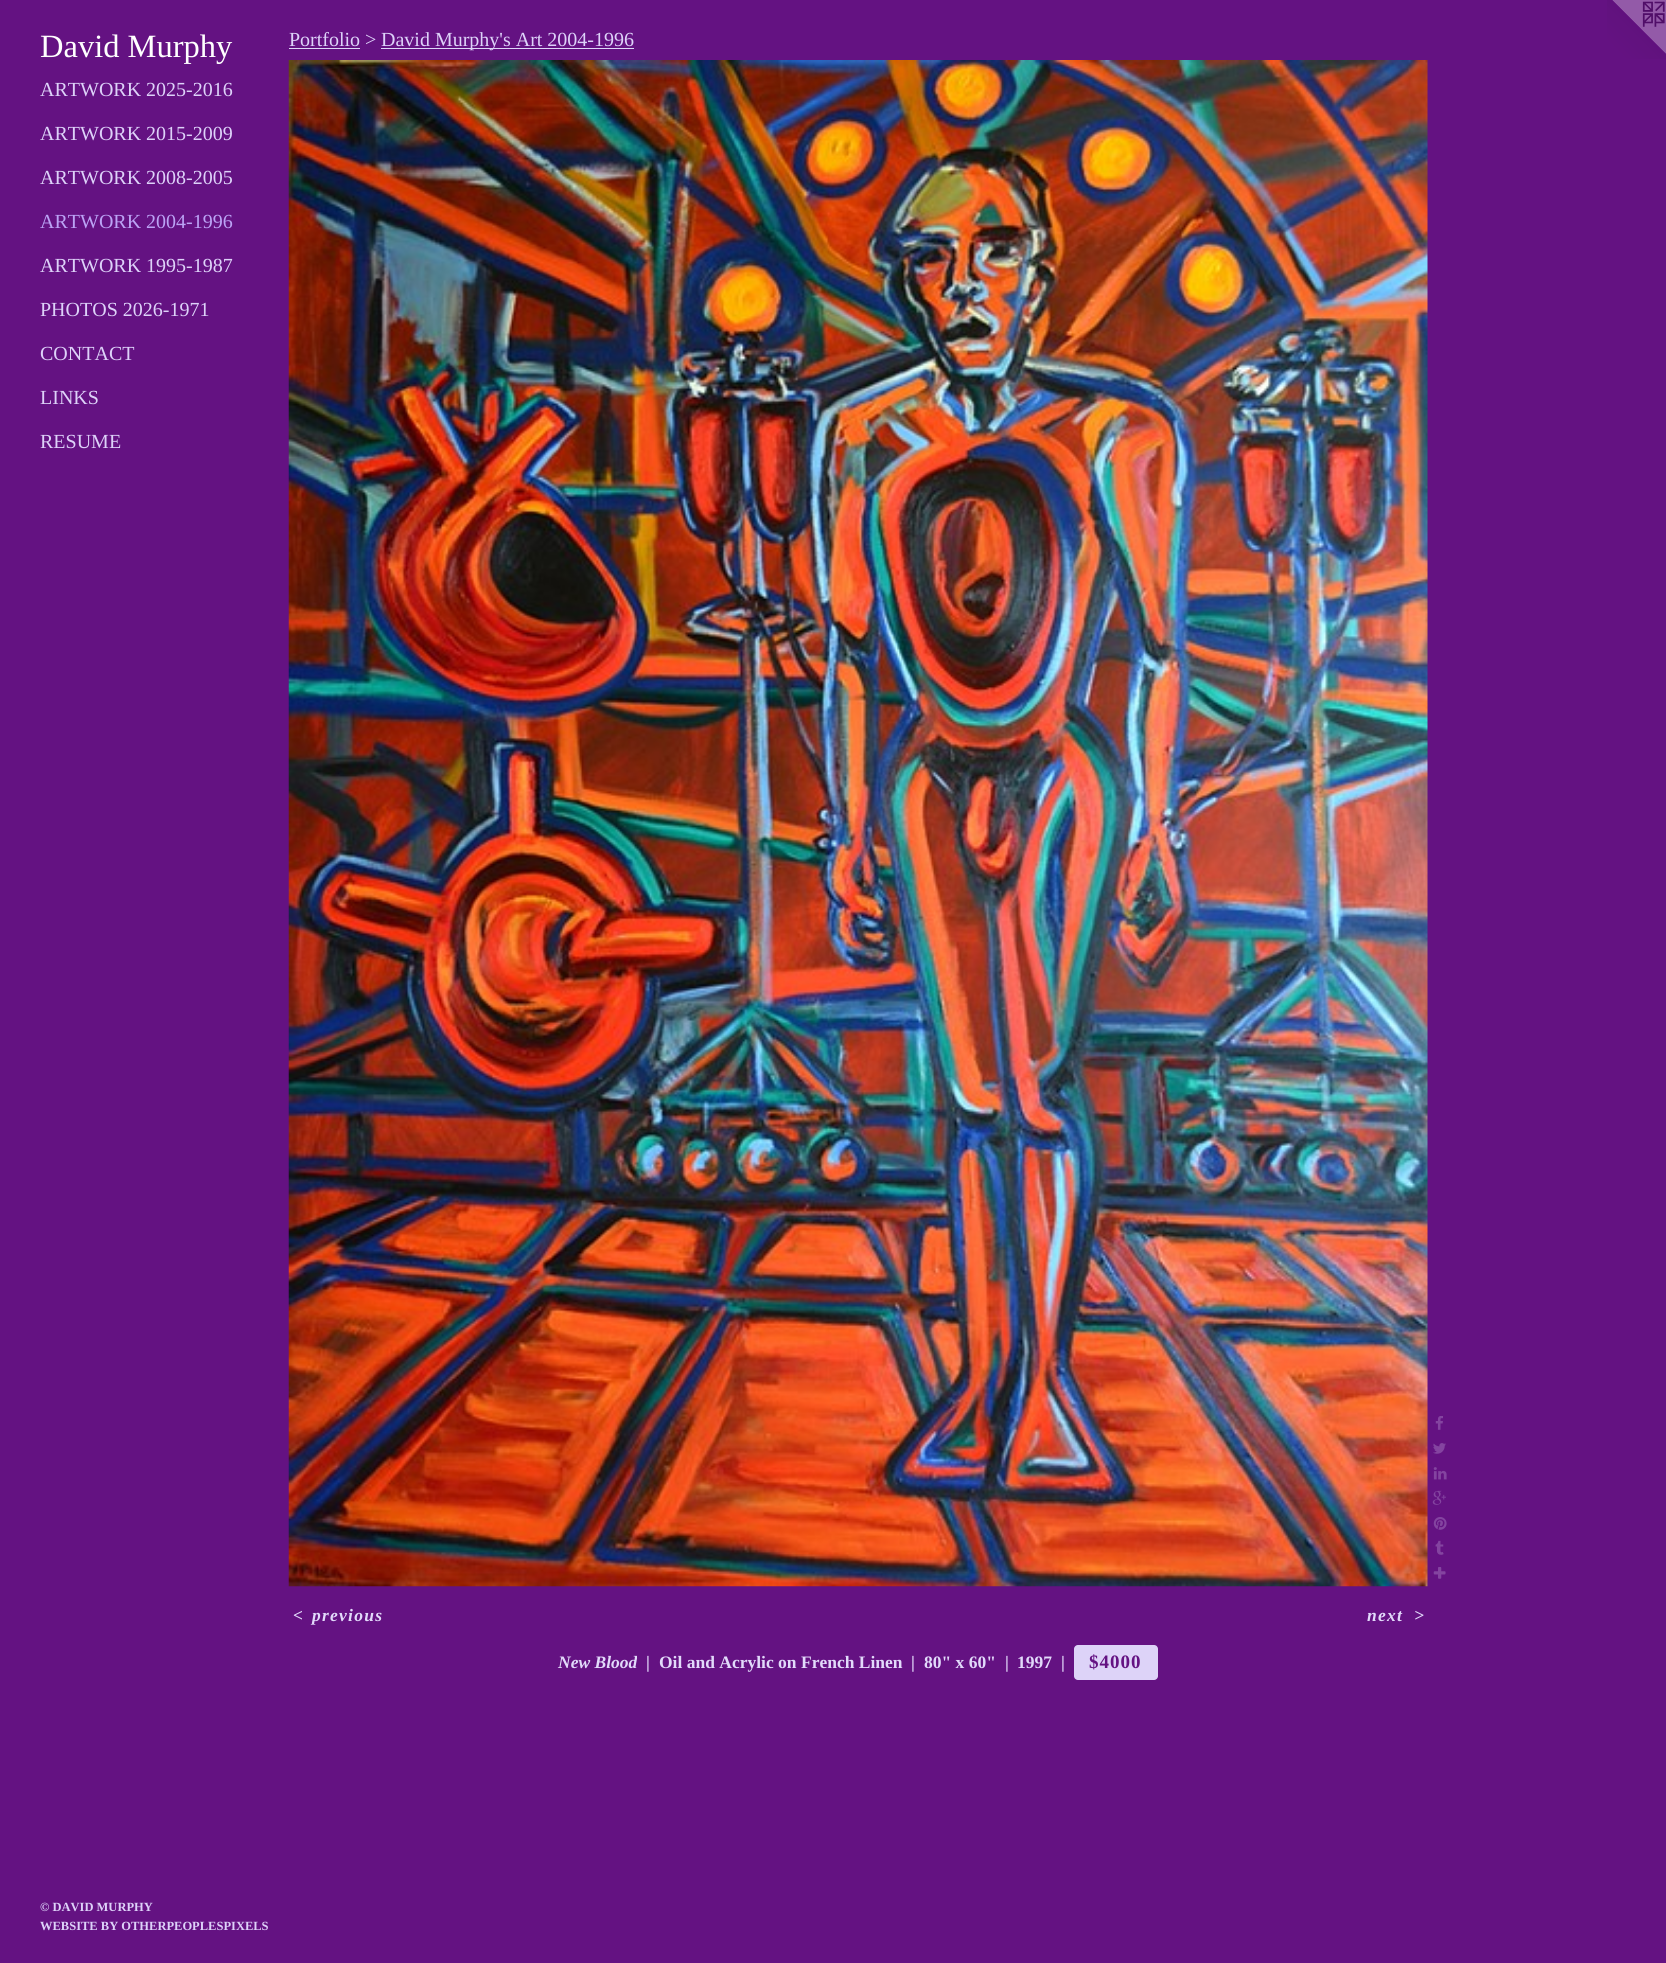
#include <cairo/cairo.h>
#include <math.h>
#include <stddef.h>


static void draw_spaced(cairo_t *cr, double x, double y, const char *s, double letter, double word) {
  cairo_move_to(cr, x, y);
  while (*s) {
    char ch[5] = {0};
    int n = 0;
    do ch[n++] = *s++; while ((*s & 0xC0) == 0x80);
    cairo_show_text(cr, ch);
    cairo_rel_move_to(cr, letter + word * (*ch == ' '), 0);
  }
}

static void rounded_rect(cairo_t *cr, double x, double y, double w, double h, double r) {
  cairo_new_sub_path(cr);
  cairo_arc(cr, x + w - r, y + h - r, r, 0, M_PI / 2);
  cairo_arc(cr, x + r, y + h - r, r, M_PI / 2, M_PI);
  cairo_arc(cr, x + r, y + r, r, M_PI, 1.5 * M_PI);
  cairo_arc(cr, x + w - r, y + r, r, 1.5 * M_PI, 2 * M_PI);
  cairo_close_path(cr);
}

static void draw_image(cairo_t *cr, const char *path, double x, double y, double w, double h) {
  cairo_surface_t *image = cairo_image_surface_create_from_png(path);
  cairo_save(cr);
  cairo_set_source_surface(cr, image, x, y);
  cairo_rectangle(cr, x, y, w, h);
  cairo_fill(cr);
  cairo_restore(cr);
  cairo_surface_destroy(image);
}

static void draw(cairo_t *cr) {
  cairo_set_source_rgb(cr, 100 / 255.0, 18 / 255.0, 130 / 255.0);
  cairo_paint(cr);
  cairo_set_source_rgb(cr, 221 / 255.0, 215 / 255.0, 249 / 255.0);
  cairo_rectangle(cr, 289, 48, 71, 1);
  cairo_fill(cr);
  cairo_rectangle(cr, 381, 48, 253, 1);
  cairo_fill(cr);
  draw_image(cr, "images/1.png", 288, 60, 1140, 1527);
  draw_image(cr, "images/2.png", 1435, 1416, 8, 14);
  draw_image(cr, "images/3.png", 1433, 1443, 13, 11);
  draw_image(cr, "images/4.png", 1433, 1467, 14, 13);
  draw_image(cr, "images/5.png", 1432, 1490, 14, 15);
  draw_image(cr, "images/6.png", 1433, 1517, 14, 13);
  draw_image(cr, "images/7.png", 1435, 1540, 9, 15);
  draw_image(cr, "images/8.png", 1433, 1567, 13, 12);
  cairo_set_source_rgb(cr, 221 / 255.0, 211 / 255.0, 248 / 255.0);
  rounded_rect(cr, 1074, 1645, 84, 35, 4);
  cairo_fill(cr);
  draw_image(cr, "images/9.png", 1607, 0, 59, 59);
  cairo_select_font_face(cr, "Liberation Serif", CAIRO_FONT_SLANT_NORMAL, CAIRO_FONT_WEIGHT_NORMAL);
  cairo_set_font_size(cr, 32.5);
  cairo_set_source_rgb(cr, 1, 1, 1);
  cairo_move_to(cr, 40, 57);
  cairo_show_text(cr, "David Murphy");
  cairo_set_font_size(cr, 20);
  cairo_set_source_rgb(cr, 221 / 255.0, 210 / 255.0, 249 / 255.0);
  cairo_move_to(cr, 40, 96);
  cairo_show_text(cr, "ARTWORK 2025-2016");
  cairo_move_to(cr, 40, 140);
  cairo_show_text(cr, "ARTWORK 2015-2009");
  cairo_move_to(cr, 40, 184);
  cairo_show_text(cr, "ARTWORK 2008-2005");
  cairo_set_source_rgb(cr, 187 / 255.0, 163 / 255.0, 245 / 255.0);
  cairo_move_to(cr, 40, 228);
  cairo_show_text(cr, "ARTWORK 2004-1996");
  cairo_set_source_rgb(cr, 221 / 255.0, 210 / 255.0, 249 / 255.0);
  cairo_move_to(cr, 40, 272);
  cairo_show_text(cr, "ARTWORK 1995-1987");
  cairo_move_to(cr, 40, 316);
  cairo_show_text(cr, "PHOTOS 2026-1971");
  cairo_move_to(cr, 40, 360);
  cairo_show_text(cr, "CONTACT");
  cairo_move_to(cr, 40, 404);
  cairo_show_text(cr, "LINKS");
  cairo_move_to(cr, 40, 448);
  cairo_show_text(cr, "RESUME");
  cairo_select_font_face(cr, "Liberation Serif", CAIRO_FONT_SLANT_NORMAL, CAIRO_FONT_WEIGHT_BOLD);
  cairo_set_font_size(cr, 12.5);
  cairo_move_to(cr, 40, 1911);
  cairo_show_text(cr, "© DAVID MURPHY");
  cairo_move_to(cr, 40, 1930);
  cairo_show_text(cr, "WEBSITE BY OTHERPEOPLESPIXELS");
  cairo_select_font_face(cr, "Liberation Serif", CAIRO_FONT_SLANT_NORMAL, CAIRO_FONT_WEIGHT_NORMAL);
  cairo_set_font_size(cr, 20);
  cairo_move_to(cr, 289, 46);
  cairo_show_text(cr, "Portfolio >");
  cairo_move_to(cr, 381, 46);
  cairo_show_text(cr, "David Murphy's Art 2004-1996");
  cairo_select_font_face(cr, "Liberation Serif", CAIRO_FONT_SLANT_ITALIC, CAIRO_FONT_WEIGHT_BOLD);
  cairo_set_font_size(cr, 17.5);
  cairo_set_source_rgb(cr, 226 / 255.0, 218 / 255.0, 251 / 255.0);
  draw_spaced(cr, 293, 1621, "<", 1.25, 0);
  draw_spaced(cr, 312, 1621, "previous", 1.25, 0);
  draw_spaced(cr, 1367, 1621, "next", 1.25, 0);
  draw_spaced(cr, 1414, 1621, ">", 1.25, 0);
  cairo_move_to(cr, 558, 1668);
  cairo_show_text(cr, "New Blood");
  cairo_select_font_face(cr, "Liberation Serif", CAIRO_FONT_SLANT_NORMAL, CAIRO_FONT_WEIGHT_BOLD);
  cairo_move_to(cr, 646, 1668);
  cairo_show_text(cr, "|");
  cairo_move_to(cr, 659, 1668);
  cairo_show_text(cr, "Oil and Acrylic on French Linen");
  cairo_move_to(cr, 911, 1668);
  cairo_show_text(cr, "|");
  cairo_move_to(cr, 924, 1668);
  cairo_show_text(cr, "80\" x 60\"");
  cairo_move_to(cr, 1005, 1668);
  cairo_show_text(cr, "|");
  cairo_move_to(cr, 1017, 1668);
  cairo_show_text(cr, "1997");
  cairo_move_to(cr, 1061, 1668);
  cairo_show_text(cr, "|");
  cairo_set_font_size(cr, 19);
  cairo_set_source_rgb(cr, 100 / 255.0, 18 / 255.0, 130 / 255.0);
  draw_spaced(cr, 1089, 1668, "$4000", 1, 0);
}

int main(void) {
  cairo_surface_t *surface = cairo_image_surface_create(CAIRO_FORMAT_RGB24, 1666, 1963);
  cairo_t *cr = cairo_create(surface);
  cairo_font_options_t *options = cairo_font_options_create();
  cairo_font_options_set_hint_metrics(options, CAIRO_HINT_METRICS_OFF);
  cairo_font_options_set_hint_style(options, CAIRO_HINT_STYLE_NONE);
  cairo_set_font_options(cr, options);
  cairo_set_miter_limit(cr, 4);
  draw(cr);
  cairo_surface_write_to_png(surface, "out.png");
  cairo_font_options_destroy(options);
  cairo_destroy(cr);
  cairo_surface_destroy(surface);
  return 0;
}
